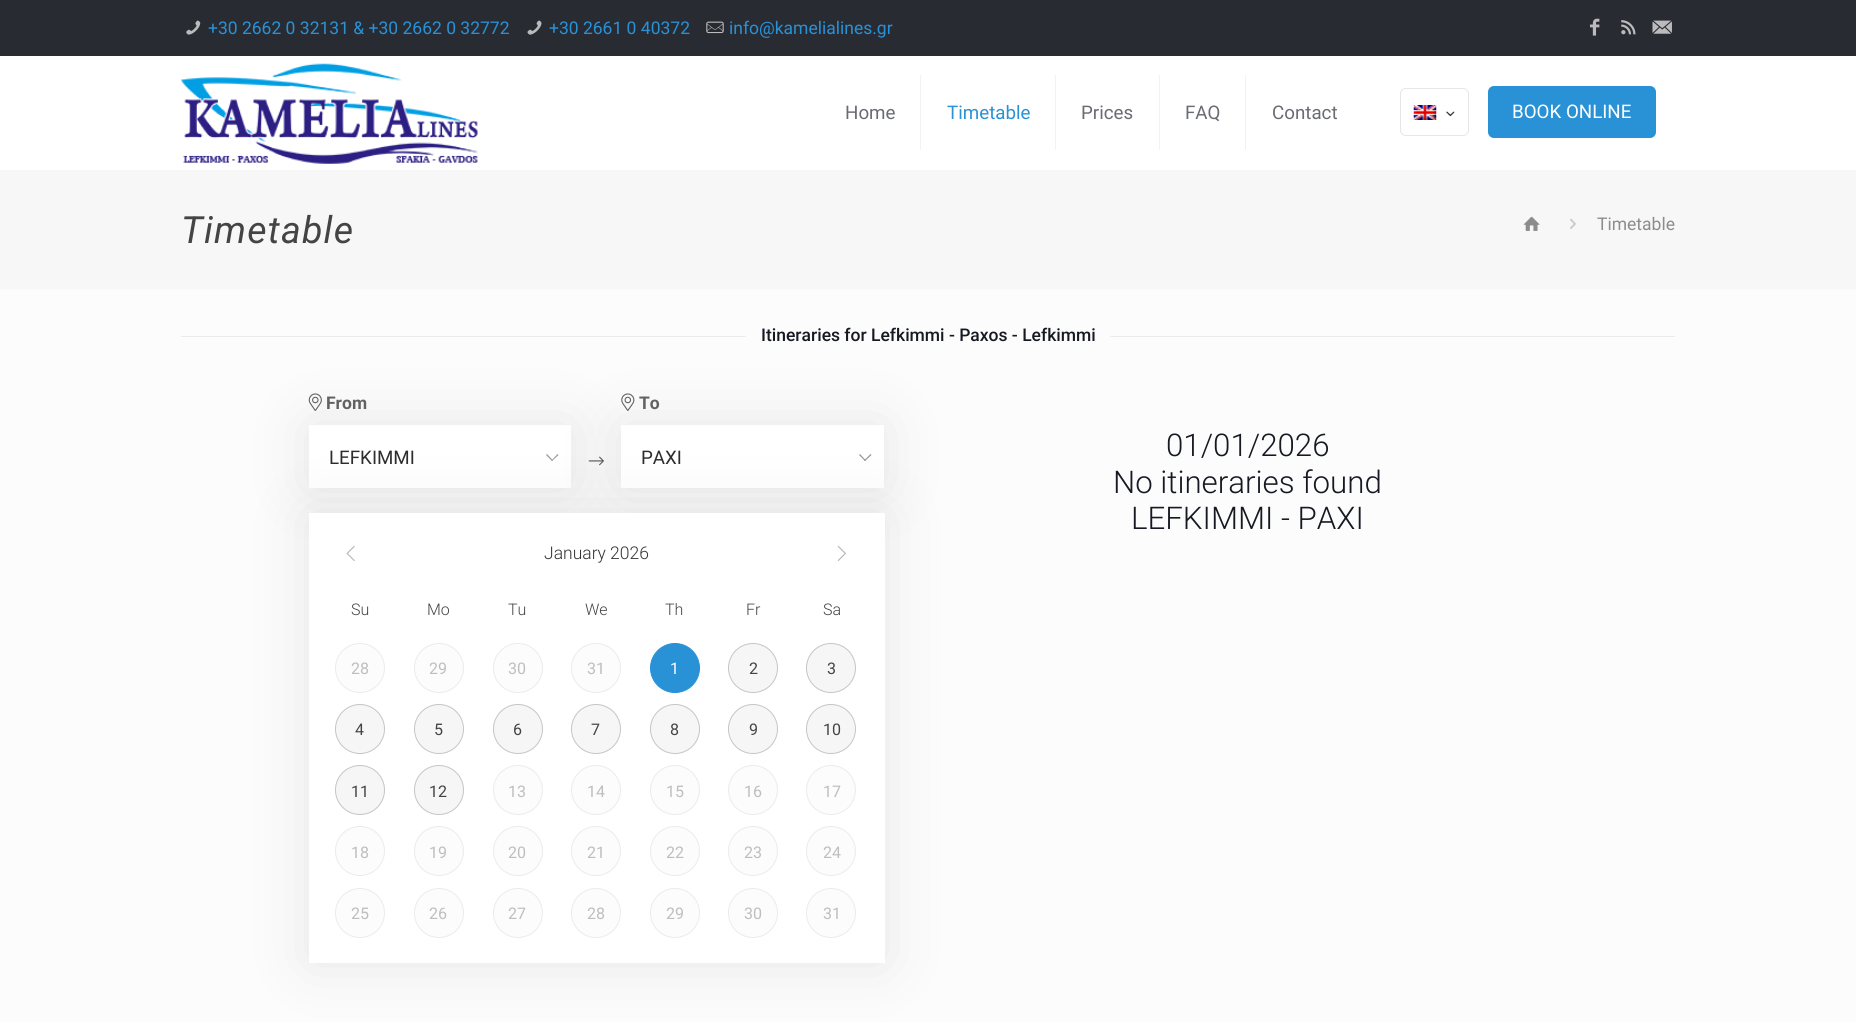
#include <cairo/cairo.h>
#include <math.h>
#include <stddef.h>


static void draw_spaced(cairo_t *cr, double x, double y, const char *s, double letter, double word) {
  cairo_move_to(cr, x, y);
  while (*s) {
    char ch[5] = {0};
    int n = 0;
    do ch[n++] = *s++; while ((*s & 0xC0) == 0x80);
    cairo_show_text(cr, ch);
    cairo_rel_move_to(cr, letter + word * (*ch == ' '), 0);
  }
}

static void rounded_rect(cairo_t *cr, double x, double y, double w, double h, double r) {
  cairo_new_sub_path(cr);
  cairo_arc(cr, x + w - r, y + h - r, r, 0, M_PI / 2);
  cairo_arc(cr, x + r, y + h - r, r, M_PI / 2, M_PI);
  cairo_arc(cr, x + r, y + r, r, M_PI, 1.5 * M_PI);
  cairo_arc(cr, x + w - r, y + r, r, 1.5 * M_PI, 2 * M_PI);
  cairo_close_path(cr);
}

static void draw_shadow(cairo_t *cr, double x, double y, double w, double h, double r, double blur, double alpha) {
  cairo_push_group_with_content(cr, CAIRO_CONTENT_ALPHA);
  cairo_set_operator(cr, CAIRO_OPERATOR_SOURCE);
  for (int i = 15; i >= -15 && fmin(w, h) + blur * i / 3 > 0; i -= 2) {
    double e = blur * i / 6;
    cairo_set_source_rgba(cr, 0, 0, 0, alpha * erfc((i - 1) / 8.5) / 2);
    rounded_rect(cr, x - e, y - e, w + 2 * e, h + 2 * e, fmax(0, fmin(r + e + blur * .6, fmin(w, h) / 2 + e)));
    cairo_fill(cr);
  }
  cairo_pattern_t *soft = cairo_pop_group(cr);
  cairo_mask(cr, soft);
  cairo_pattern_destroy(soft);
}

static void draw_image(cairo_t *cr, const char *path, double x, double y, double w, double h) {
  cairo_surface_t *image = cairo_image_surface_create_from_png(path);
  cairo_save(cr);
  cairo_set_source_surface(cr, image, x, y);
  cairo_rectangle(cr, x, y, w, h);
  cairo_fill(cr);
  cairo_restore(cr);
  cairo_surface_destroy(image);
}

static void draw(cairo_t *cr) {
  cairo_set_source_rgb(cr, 252 / 255.0, 252 / 255.0, 252 / 255.0);
  cairo_paint(cr);
  cairo_set_source_rgb(cr, 41 / 255.0, 43 / 255.0, 51 / 255.0);
  cairo_rectangle(cr, 0, 0, 1856, 56);
  cairo_fill(cr);
  draw_image(cr, "images/1.png", 186, 20, 15, 15);
  draw_image(cr, "images/2.png", 527, 20, 15, 15);
  draw_image(cr, "images/3.png", 706, 21, 18, 13);
  draw_image(cr, "images/4.png", 1590, 18, 10, 18);
  draw_image(cr, "images/5.png", 1621, 20, 15, 15);
  draw_image(cr, "images/6.png", 1652, 20, 20, 14);
  cairo_set_source_rgb(cr, 1, 1, 1);
  cairo_rectangle(cr, 0, 56, 1856, 114);
  cairo_fill(cr);
  draw_image(cr, "images/7.png", 181, 63, 297, 101);
  cairo_set_source_rgb(cr, 242 / 255.0, 242 / 255.0, 242 / 255.0);
  cairo_rectangle(cr, 920, 75, 1, 75);
  cairo_fill(cr);
  cairo_rectangle(cr, 1055, 75, 1, 75);
  cairo_fill(cr);
  cairo_rectangle(cr, 1159, 75, 1, 75);
  cairo_fill(cr);
  cairo_rectangle(cr, 1245, 75, 1, 75);
  cairo_fill(cr);
  rounded_rect(cr, 1400.5, 88.5, 68, 47, 5.5);
  cairo_set_source_rgb(cr, 230 / 255.0, 230 / 255.0, 230 / 255.0);
  cairo_set_line_width(cr, 1);
  cairo_stroke(cr);
  draw_image(cr, "images/8.png", 1413, 105, 24, 15);
  draw_image(cr, "images/9.png", 1446, 111, 9, 6);
  cairo_set_source_rgb(cr, 41 / 255.0, 145 / 255.0, 214 / 255.0);
  rounded_rect(cr, 1488, 86, 168, 52, 6);
  cairo_fill(cr);
  cairo_set_source_rgb(cr, 247 / 255.0, 247 / 255.0, 247 / 255.0);
  cairo_rectangle(cr, 0, 170, 1856, 119);
  cairo_fill(cr);
  draw_image(cr, "images/10.png", 1523, 216, 17, 15);
  draw_image(cr, "images/11.png", 1570, 218, 6, 11);
  cairo_set_source_rgb(cr, 235 / 255.0, 235 / 255.0, 235 / 255.0);
  cairo_rectangle(cr, 181, 336, 565, 1);
  cairo_fill(cr);
  cairo_rectangle(cr, 1110, 336, 565, 1);
  cairo_fill(cr);
  draw_image(cr, "images/12.png", 308, 393, 14, 18);
  draw_image(cr, "images/13.png", 588, 456, 16, 10);
  draw_image(cr, "images/14.png", 621, 393, 14, 18);
  cairo_set_source_rgb(cr, 0, 0, 0);
  draw_shadow(cr, 309, 425, 262, 63, 0, 30.5, 0.09);
  cairo_set_source_rgb(cr, 1, 1, 1);
  cairo_rectangle(cr, 309, 425, 262, 63);
  cairo_fill(cr);
  cairo_set_source_rgb(cr, 153 / 255.0, 153 / 255.0, 153 / 255.0);
  cairo_new_path(cr);
  cairo_move_to(cr, 557.5, 454);
  cairo_line_to(cr, 558.5, 455);
  cairo_line_to(cr, 552, 461);
  cairo_line_to(cr, 551.5, 460.5);
  cairo_close_path(cr);
  cairo_fill(cr);
  cairo_new_path(cr);
  cairo_move_to(cr, 547, 454);
  cairo_line_to(cr, 553, 460.5);
  cairo_line_to(cr, 552, 461);
  cairo_line_to(cr, 546, 455);
  cairo_close_path(cr);
  cairo_fill(cr);
  cairo_set_source_rgb(cr, 0, 0, 0);
  draw_shadow(cr, 621, 425, 263, 63, 0, 30.5, 0.09);
  cairo_set_source_rgb(cr, 1, 1, 1);
  cairo_rectangle(cr, 621, 425, 263, 63);
  cairo_fill(cr);
  cairo_set_source_rgb(cr, 153 / 255.0, 153 / 255.0, 153 / 255.0);
  cairo_new_path(cr);
  cairo_move_to(cr, 870.5, 454);
  cairo_line_to(cr, 871.5, 455);
  cairo_line_to(cr, 865, 461);
  cairo_line_to(cr, 864, 460.5);
  cairo_close_path(cr);
  cairo_fill(cr);
  cairo_new_path(cr);
  cairo_move_to(cr, 860, 454);
  cairo_line_to(cr, 866, 460.5);
  cairo_line_to(cr, 865, 461);
  cairo_line_to(cr, 859, 455);
  cairo_close_path(cr);
  cairo_fill(cr);
  cairo_set_source_rgb(cr, 0, 0, 0);
  draw_shadow(cr, 309, 513, 576, 450, 0, 30.5, 0.09);
  cairo_set_source_rgb(cr, 1, 1, 1);
  cairo_rectangle(cr, 309, 513, 576, 450);
  cairo_fill(cr);
  draw_image(cr, "images/15.png", 346, 545, 9, 16);
  draw_image(cr, "images/16.png", 837, 545, 9, 16);
  cairo_set_source_rgb(cr, 252 / 255.0, 252 / 255.0, 252 / 255.0);
  cairo_arc(cr, 360, 668, 24.5, 0, 2 * M_PI);
  cairo_fill_preserve(cr);
  cairo_set_source_rgb(cr, 235 / 255.0, 235 / 255.0, 235 / 255.0);
  cairo_stroke(cr);
  cairo_set_source_rgb(cr, 252 / 255.0, 252 / 255.0, 252 / 255.0);
  cairo_arc(cr, 439, 668, 24.5, 0, 2 * M_PI);
  cairo_fill_preserve(cr);
  cairo_set_source_rgb(cr, 235 / 255.0, 235 / 255.0, 235 / 255.0);
  cairo_stroke(cr);
  cairo_set_source_rgb(cr, 252 / 255.0, 252 / 255.0, 252 / 255.0);
  cairo_arc(cr, 518, 668, 24.5, 0, 2 * M_PI);
  cairo_fill_preserve(cr);
  cairo_set_source_rgb(cr, 235 / 255.0, 235 / 255.0, 235 / 255.0);
  cairo_stroke(cr);
  cairo_set_source_rgb(cr, 252 / 255.0, 252 / 255.0, 252 / 255.0);
  cairo_arc(cr, 596, 668, 24.5, 0, 2 * M_PI);
  cairo_fill_preserve(cr);
  cairo_set_source_rgb(cr, 235 / 255.0, 235 / 255.0, 235 / 255.0);
  cairo_stroke(cr);
  cairo_set_source_rgb(cr, 41 / 255.0, 145 / 255.0, 214 / 255.0);
  cairo_arc(cr, 675, 668, 24.5, 0, 2 * M_PI);
  cairo_fill_preserve(cr);
  cairo_stroke(cr);
  cairo_set_source_rgb(cr, 246 / 255.0, 246 / 255.0, 246 / 255.0);
  cairo_arc(cr, 753, 668, 24.5, 0, 2 * M_PI);
  cairo_fill_preserve(cr);
  cairo_set_source_rgb(cr, 197 / 255.0, 197 / 255.0, 197 / 255.0);
  cairo_stroke(cr);
  cairo_set_source_rgb(cr, 246 / 255.0, 246 / 255.0, 246 / 255.0);
  cairo_arc(cr, 831, 668, 24.5, 0, 2 * M_PI);
  cairo_fill_preserve(cr);
  cairo_set_source_rgb(cr, 197 / 255.0, 197 / 255.0, 197 / 255.0);
  cairo_stroke(cr);
  cairo_set_source_rgb(cr, 246 / 255.0, 246 / 255.0, 246 / 255.0);
  cairo_arc(cr, 360, 729, 24.5, 0, 2 * M_PI);
  cairo_fill_preserve(cr);
  cairo_set_source_rgb(cr, 197 / 255.0, 197 / 255.0, 197 / 255.0);
  cairo_stroke(cr);
  cairo_set_source_rgb(cr, 246 / 255.0, 246 / 255.0, 246 / 255.0);
  cairo_arc(cr, 439, 729, 24.5, 0, 2 * M_PI);
  cairo_fill_preserve(cr);
  cairo_set_source_rgb(cr, 197 / 255.0, 197 / 255.0, 197 / 255.0);
  cairo_stroke(cr);
  cairo_set_source_rgb(cr, 246 / 255.0, 246 / 255.0, 246 / 255.0);
  cairo_arc(cr, 518, 729, 24.5, 0, 2 * M_PI);
  cairo_fill_preserve(cr);
  cairo_set_source_rgb(cr, 197 / 255.0, 197 / 255.0, 197 / 255.0);
  cairo_stroke(cr);
  cairo_set_source_rgb(cr, 246 / 255.0, 246 / 255.0, 246 / 255.0);
  cairo_arc(cr, 596, 729, 24.5, 0, 2 * M_PI);
  cairo_fill_preserve(cr);
  cairo_set_source_rgb(cr, 197 / 255.0, 197 / 255.0, 197 / 255.0);
  cairo_stroke(cr);
  cairo_set_source_rgb(cr, 246 / 255.0, 246 / 255.0, 246 / 255.0);
  cairo_arc(cr, 675, 729, 24.5, 0, 2 * M_PI);
  cairo_fill_preserve(cr);
  cairo_set_source_rgb(cr, 197 / 255.0, 197 / 255.0, 197 / 255.0);
  cairo_stroke(cr);
  cairo_set_source_rgb(cr, 246 / 255.0, 246 / 255.0, 246 / 255.0);
  cairo_arc(cr, 753, 729, 24.5, 0, 2 * M_PI);
  cairo_fill_preserve(cr);
  cairo_set_source_rgb(cr, 197 / 255.0, 197 / 255.0, 197 / 255.0);
  cairo_stroke(cr);
  cairo_set_source_rgb(cr, 246 / 255.0, 246 / 255.0, 246 / 255.0);
  cairo_arc(cr, 831, 729, 24.5, 0, 2 * M_PI);
  cairo_fill_preserve(cr);
  cairo_set_source_rgb(cr, 197 / 255.0, 197 / 255.0, 197 / 255.0);
  cairo_stroke(cr);
  cairo_set_source_rgb(cr, 246 / 255.0, 246 / 255.0, 246 / 255.0);
  cairo_arc(cr, 360, 790, 24.5, 0, 2 * M_PI);
  cairo_fill_preserve(cr);
  cairo_set_source_rgb(cr, 197 / 255.0, 197 / 255.0, 197 / 255.0);
  cairo_stroke(cr);
  cairo_set_source_rgb(cr, 246 / 255.0, 246 / 255.0, 246 / 255.0);
  cairo_arc(cr, 439, 790, 24.5, 0, 2 * M_PI);
  cairo_fill_preserve(cr);
  cairo_set_source_rgb(cr, 197 / 255.0, 197 / 255.0, 197 / 255.0);
  cairo_stroke(cr);
  cairo_set_source_rgb(cr, 252 / 255.0, 252 / 255.0, 252 / 255.0);
  cairo_arc(cr, 518, 790, 24.5, 0, 2 * M_PI);
  cairo_fill_preserve(cr);
  cairo_set_source_rgb(cr, 235 / 255.0, 235 / 255.0, 235 / 255.0);
  cairo_stroke(cr);
  cairo_set_source_rgb(cr, 252 / 255.0, 252 / 255.0, 252 / 255.0);
  cairo_arc(cr, 596, 790, 24.5, 0, 2 * M_PI);
  cairo_fill_preserve(cr);
  cairo_set_source_rgb(cr, 235 / 255.0, 235 / 255.0, 235 / 255.0);
  cairo_stroke(cr);
  cairo_set_source_rgb(cr, 252 / 255.0, 252 / 255.0, 252 / 255.0);
  cairo_arc(cr, 675, 790, 24.5, 0, 2 * M_PI);
  cairo_fill_preserve(cr);
  cairo_set_source_rgb(cr, 235 / 255.0, 235 / 255.0, 235 / 255.0);
  cairo_stroke(cr);
  cairo_set_source_rgb(cr, 252 / 255.0, 252 / 255.0, 252 / 255.0);
  cairo_arc(cr, 753, 790, 24.5, 0, 2 * M_PI);
  cairo_fill_preserve(cr);
  cairo_set_source_rgb(cr, 235 / 255.0, 235 / 255.0, 235 / 255.0);
  cairo_stroke(cr);
  cairo_set_source_rgb(cr, 252 / 255.0, 252 / 255.0, 252 / 255.0);
  cairo_arc(cr, 831, 790, 24.5, 0, 2 * M_PI);
  cairo_fill_preserve(cr);
  cairo_set_source_rgb(cr, 235 / 255.0, 235 / 255.0, 235 / 255.0);
  cairo_stroke(cr);
  cairo_set_source_rgb(cr, 252 / 255.0, 252 / 255.0, 252 / 255.0);
  cairo_arc(cr, 360, 851, 24.5, 0, 2 * M_PI);
  cairo_fill_preserve(cr);
  cairo_set_source_rgb(cr, 235 / 255.0, 235 / 255.0, 235 / 255.0);
  cairo_stroke(cr);
  cairo_set_source_rgb(cr, 252 / 255.0, 252 / 255.0, 252 / 255.0);
  cairo_arc(cr, 439, 851, 24.5, 0, 2 * M_PI);
  cairo_fill_preserve(cr);
  cairo_set_source_rgb(cr, 235 / 255.0, 235 / 255.0, 235 / 255.0);
  cairo_stroke(cr);
  cairo_set_source_rgb(cr, 252 / 255.0, 252 / 255.0, 252 / 255.0);
  cairo_arc(cr, 518, 851, 24.5, 0, 2 * M_PI);
  cairo_fill_preserve(cr);
  cairo_set_source_rgb(cr, 235 / 255.0, 235 / 255.0, 235 / 255.0);
  cairo_stroke(cr);
  cairo_set_source_rgb(cr, 252 / 255.0, 252 / 255.0, 252 / 255.0);
  cairo_arc(cr, 596, 851, 24.5, 0, 2 * M_PI);
  cairo_fill_preserve(cr);
  cairo_set_source_rgb(cr, 235 / 255.0, 235 / 255.0, 235 / 255.0);
  cairo_stroke(cr);
  cairo_set_source_rgb(cr, 252 / 255.0, 252 / 255.0, 252 / 255.0);
  cairo_arc(cr, 675, 851, 24.5, 0, 2 * M_PI);
  cairo_fill_preserve(cr);
  cairo_set_source_rgb(cr, 235 / 255.0, 235 / 255.0, 235 / 255.0);
  cairo_stroke(cr);
  cairo_set_source_rgb(cr, 252 / 255.0, 252 / 255.0, 252 / 255.0);
  cairo_arc(cr, 753, 851, 24.5, 0, 2 * M_PI);
  cairo_fill_preserve(cr);
  cairo_set_source_rgb(cr, 235 / 255.0, 235 / 255.0, 235 / 255.0);
  cairo_stroke(cr);
  cairo_set_source_rgb(cr, 252 / 255.0, 252 / 255.0, 252 / 255.0);
  cairo_arc(cr, 831, 851, 24.5, 0, 2 * M_PI);
  cairo_fill_preserve(cr);
  cairo_set_source_rgb(cr, 235 / 255.0, 235 / 255.0, 235 / 255.0);
  cairo_stroke(cr);
  cairo_set_source_rgb(cr, 252 / 255.0, 252 / 255.0, 252 / 255.0);
  cairo_arc(cr, 360, 913, 24.5, 0, 2 * M_PI);
  cairo_fill_preserve(cr);
  cairo_set_source_rgb(cr, 235 / 255.0, 235 / 255.0, 235 / 255.0);
  cairo_stroke(cr);
  cairo_set_source_rgb(cr, 252 / 255.0, 252 / 255.0, 252 / 255.0);
  cairo_arc(cr, 439, 913, 24.5, 0, 2 * M_PI);
  cairo_fill_preserve(cr);
  cairo_set_source_rgb(cr, 235 / 255.0, 235 / 255.0, 235 / 255.0);
  cairo_stroke(cr);
  cairo_set_source_rgb(cr, 252 / 255.0, 252 / 255.0, 252 / 255.0);
  cairo_arc(cr, 518, 913, 24.5, 0, 2 * M_PI);
  cairo_fill_preserve(cr);
  cairo_set_source_rgb(cr, 235 / 255.0, 235 / 255.0, 235 / 255.0);
  cairo_stroke(cr);
  cairo_set_source_rgb(cr, 252 / 255.0, 252 / 255.0, 252 / 255.0);
  cairo_arc(cr, 596, 913, 24.5, 0, 2 * M_PI);
  cairo_fill_preserve(cr);
  cairo_set_source_rgb(cr, 235 / 255.0, 235 / 255.0, 235 / 255.0);
  cairo_stroke(cr);
  cairo_set_source_rgb(cr, 252 / 255.0, 252 / 255.0, 252 / 255.0);
  cairo_arc(cr, 675, 913, 24.5, 0, 2 * M_PI);
  cairo_fill_preserve(cr);
  cairo_set_source_rgb(cr, 235 / 255.0, 235 / 255.0, 235 / 255.0);
  cairo_stroke(cr);
  cairo_set_source_rgb(cr, 252 / 255.0, 252 / 255.0, 252 / 255.0);
  cairo_arc(cr, 753, 913, 24.5, 0, 2 * M_PI);
  cairo_fill_preserve(cr);
  cairo_set_source_rgb(cr, 235 / 255.0, 235 / 255.0, 235 / 255.0);
  cairo_stroke(cr);
  cairo_set_source_rgb(cr, 252 / 255.0, 252 / 255.0, 252 / 255.0);
  cairo_arc(cr, 831, 913, 24.5, 0, 2 * M_PI);
  cairo_fill_preserve(cr);
  cairo_set_source_rgb(cr, 235 / 255.0, 235 / 255.0, 235 / 255.0);
  cairo_stroke(cr);
  cairo_select_font_face(cr, "Roboto", CAIRO_FONT_SLANT_NORMAL, CAIRO_FONT_WEIGHT_NORMAL);
  cairo_set_font_size(cr, 17.5);
  cairo_set_source_rgb(cr, 41 / 255.0, 145 / 255.0, 214 / 255.0);
  cairo_move_to(cr, 208, 34);
  cairo_show_text(cr, "+30 2662 0 32131 & +30 2662 0 32772");
  cairo_move_to(cr, 549, 34);
  cairo_show_text(cr, "+30 2661 0 40372");
  cairo_move_to(cr, 729, 34);
  cairo_show_text(cr, "info@kamelialines.gr");
  cairo_set_font_size(cr, 18.75);
  cairo_set_source_rgb(cr, 106 / 255.0, 108 / 255.0, 116 / 255.0);
  cairo_move_to(cr, 845, 119);
  cairo_show_text(cr, "Home");
  cairo_set_source_rgb(cr, 41 / 255.0, 145 / 255.0, 214 / 255.0);
  cairo_move_to(cr, 947, 119);
  cairo_show_text(cr, "Timetable");
  cairo_set_source_rgb(cr, 106 / 255.0, 108 / 255.0, 116 / 255.0);
  cairo_move_to(cr, 1081, 119);
  cairo_show_text(cr, "Prices");
  cairo_move_to(cr, 1185, 119);
  cairo_show_text(cr, "FAQ");
  cairo_move_to(cr, 1272, 119);
  cairo_show_text(cr, "Contact");
  cairo_set_source_rgb(cr, 1, 1, 1);
  cairo_move_to(cr, 1512, 118);
  cairo_show_text(cr, "BOOK ONLINE");
  cairo_select_font_face(cr, "Roboto", CAIRO_FONT_SLANT_ITALIC, CAIRO_FONT_WEIGHT_NORMAL);
  cairo_set_font_size(cr, 37.5);
  cairo_set_source_rgb(cr, 68 / 255.0, 68 / 255.0, 68 / 255.0);
  draw_spaced(cr, 181, 243, "Timetable", 1.25, 0);
  cairo_select_font_face(cr, "Roboto", CAIRO_FONT_SLANT_NORMAL, CAIRO_FONT_WEIGHT_NORMAL);
  cairo_set_font_size(cr, 17.5);
  cairo_set_source_rgb(cr, 140 / 255.0, 140 / 255.0, 140 / 255.0);
  cairo_move_to(cr, 1597, 230);
  cairo_show_text(cr, "Timetable");
  cairo_select_font_face(cr, "Roboto Medium", CAIRO_FONT_SLANT_NORMAL, CAIRO_FONT_WEIGHT_NORMAL);
  cairo_set_source_rgb(cr, 22 / 255.0, 25 / 255.0, 34 / 255.0);
  cairo_move_to(cr, 761, 341);
  cairo_show_text(cr, "Itineraries for Lefkimmi - Paxos - Lefkimmi");
  cairo_select_font_face(cr, "Roboto", CAIRO_FONT_SLANT_NORMAL, CAIRO_FONT_WEIGHT_BOLD);
  cairo_set_source_rgb(cr, 98 / 255.0, 98 / 255.0, 98 / 255.0);
  cairo_move_to(cr, 326, 409);
  cairo_show_text(cr, "From");
  cairo_select_font_face(cr, "Roboto", CAIRO_FONT_SLANT_NORMAL, CAIRO_FONT_WEIGHT_NORMAL);
  cairo_set_font_size(cr, 18.75);
  cairo_set_source_rgb(cr, 45 / 255.0, 45 / 255.0, 45 / 255.0);
  cairo_move_to(cr, 329, 464);
  cairo_show_text(cr, "LEFKIMMI");
  cairo_select_font_face(cr, "Roboto", CAIRO_FONT_SLANT_NORMAL, CAIRO_FONT_WEIGHT_BOLD);
  cairo_set_font_size(cr, 17.5);
  cairo_set_source_rgb(cr, 98 / 255.0, 98 / 255.0, 98 / 255.0);
  cairo_move_to(cr, 639, 409);
  cairo_show_text(cr, "To");
  cairo_select_font_face(cr, "Roboto", CAIRO_FONT_SLANT_NORMAL, CAIRO_FONT_WEIGHT_NORMAL);
  cairo_set_font_size(cr, 18.75);
  cairo_set_source_rgb(cr, 45 / 255.0, 45 / 255.0, 45 / 255.0);
  cairo_move_to(cr, 641, 464);
  cairo_show_text(cr, "PAXI");
  cairo_select_font_face(cr, "Roboto Light", CAIRO_FONT_SLANT_NORMAL, CAIRO_FONT_WEIGHT_NORMAL);
  cairo_set_font_size(cr, 17.5);
  cairo_set_source_rgb(cr, 51 / 255.0, 51 / 255.0, 51 / 255.0);
  cairo_move_to(cr, 544, 559);
  cairo_show_text(cr, "January 2026");
  cairo_set_font_size(cr, 16);
  cairo_set_source_rgb(cr, 68 / 255.0, 68 / 255.0, 68 / 255.0);
  cairo_move_to(cr, 351, 615);
  cairo_show_text(cr, "Su");
  cairo_move_to(cr, 427, 615);
  cairo_show_text(cr, "Mo");
  cairo_move_to(cr, 508, 615);
  cairo_show_text(cr, "Tu");
  cairo_move_to(cr, 585, 615);
  cairo_show_text(cr, "We");
  cairo_move_to(cr, 665, 615);
  cairo_show_text(cr, "Th");
  cairo_move_to(cr, 746, 615);
  cairo_show_text(cr, "Fr");
  cairo_move_to(cr, 823, 615);
  cairo_show_text(cr, "Sa");
  cairo_select_font_face(cr, "Roboto", CAIRO_FONT_SLANT_NORMAL, CAIRO_FONT_WEIGHT_NORMAL);
  cairo_set_source_rgb(cr, 190 / 255.0, 190 / 255.0, 190 / 255.0);
  cairo_move_to(cr, 351, 674);
  cairo_show_text(cr, "28");
  cairo_move_to(cr, 429, 674);
  cairo_show_text(cr, "29");
  cairo_move_to(cr, 508, 674);
  cairo_show_text(cr, "30");
  cairo_move_to(cr, 587, 674);
  cairo_show_text(cr, "31");
  cairo_set_source_rgb(cr, 1, 1, 1);
  cairo_move_to(cr, 670, 674);
  cairo_show_text(cr, "1");
  cairo_set_source_rgb(cr, 68 / 255.0, 68 / 255.0, 68 / 255.0);
  cairo_move_to(cr, 749, 674);
  cairo_show_text(cr, "2");
  cairo_move_to(cr, 827, 674);
  cairo_show_text(cr, "3");
  cairo_move_to(cr, 355, 735);
  cairo_show_text(cr, "4");
  cairo_move_to(cr, 434, 735);
  cairo_show_text(cr, "5");
  cairo_move_to(cr, 513, 735);
  cairo_show_text(cr, "6");
  cairo_move_to(cr, 591, 735);
  cairo_show_text(cr, "7");
  cairo_move_to(cr, 670, 735);
  cairo_show_text(cr, "8");
  cairo_move_to(cr, 749, 735);
  cairo_show_text(cr, "9");
  cairo_move_to(cr, 823, 735);
  cairo_show_text(cr, "10");
  cairo_move_to(cr, 351, 797);
  cairo_show_text(cr, "11");
  cairo_move_to(cr, 429, 797);
  cairo_show_text(cr, "12");
  cairo_set_source_rgb(cr, 190 / 255.0, 190 / 255.0, 190 / 255.0);
  cairo_move_to(cr, 508, 797);
  cairo_show_text(cr, "13");
  cairo_move_to(cr, 587, 797);
  cairo_show_text(cr, "14");
  cairo_move_to(cr, 666, 797);
  cairo_show_text(cr, "15");
  cairo_move_to(cr, 744, 797);
  cairo_show_text(cr, "16");
  cairo_move_to(cr, 823, 797);
  cairo_show_text(cr, "17");
  cairo_move_to(cr, 351, 858);
  cairo_show_text(cr, "18");
  cairo_move_to(cr, 429, 858);
  cairo_show_text(cr, "19");
  cairo_move_to(cr, 508, 858);
  cairo_show_text(cr, "20");
  cairo_move_to(cr, 587, 858);
  cairo_show_text(cr, "21");
  cairo_move_to(cr, 666, 858);
  cairo_show_text(cr, "22");
  cairo_move_to(cr, 744, 858);
  cairo_show_text(cr, "23");
  cairo_move_to(cr, 823, 858);
  cairo_show_text(cr, "24");
  cairo_move_to(cr, 351, 919);
  cairo_show_text(cr, "25");
  cairo_move_to(cr, 429, 919);
  cairo_show_text(cr, "26");
  cairo_move_to(cr, 508, 919);
  cairo_show_text(cr, "27");
  cairo_move_to(cr, 587, 919);
  cairo_show_text(cr, "28");
  cairo_move_to(cr, 666, 919);
  cairo_show_text(cr, "29");
  cairo_move_to(cr, 744, 919);
  cairo_show_text(cr, "30");
  cairo_move_to(cr, 823, 919);
  cairo_show_text(cr, "31");
  cairo_select_font_face(cr, "Roboto Light", CAIRO_FONT_SLANT_NORMAL, CAIRO_FONT_WEIGHT_NORMAL);
  cairo_set_font_size(cr, 31.25);
  cairo_set_source_rgb(cr, 22 / 255.0, 25 / 255.0, 34 / 255.0);
  cairo_move_to(cr, 1166, 456);
  cairo_show_text(cr, "01/01/2026");
  cairo_move_to(cr, 1113, 493);
  cairo_show_text(cr, "No itineraries found");
  cairo_move_to(cr, 1131, 529);
  cairo_show_text(cr, "LEFKIMMI - PAXI");
}

int main(void) {
  cairo_surface_t *surface = cairo_image_surface_create(CAIRO_FORMAT_RGB24, 1856, 1022);
  cairo_t *cr = cairo_create(surface);
  cairo_font_options_t *options = cairo_font_options_create();
  cairo_font_options_set_hint_metrics(options, CAIRO_HINT_METRICS_OFF);
  cairo_font_options_set_hint_style(options, CAIRO_HINT_STYLE_NONE);
  cairo_set_font_options(cr, options);
  cairo_set_miter_limit(cr, 4);
  draw(cr);
  cairo_surface_write_to_png(surface, "out.png");
  cairo_font_options_destroy(options);
  cairo_destroy(cr);
  cairo_surface_destroy(surface);
  return 0;
}
